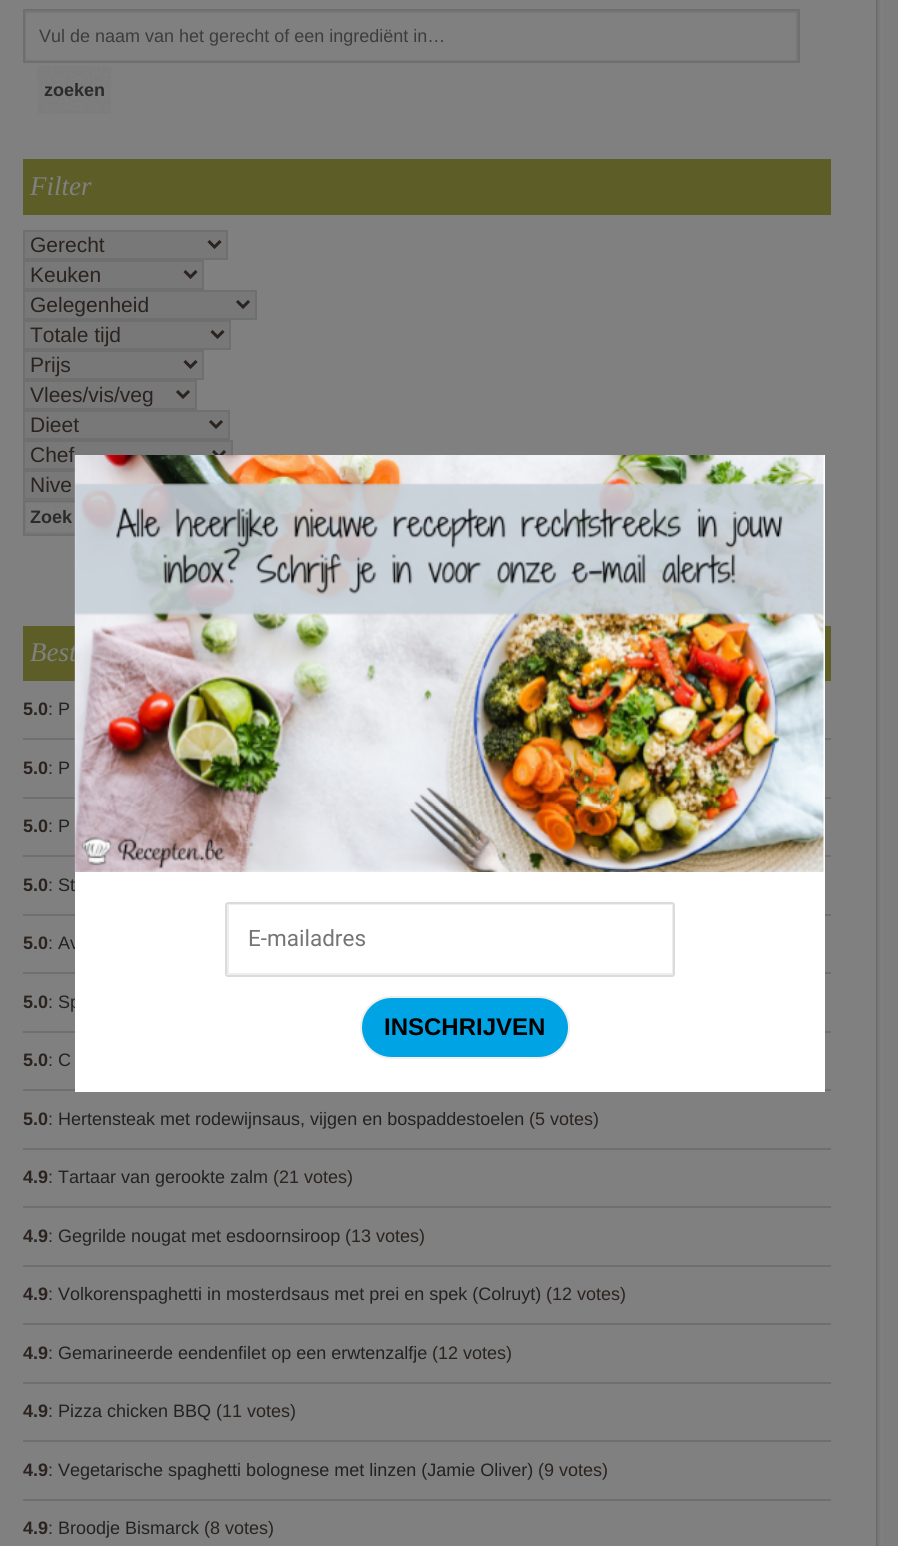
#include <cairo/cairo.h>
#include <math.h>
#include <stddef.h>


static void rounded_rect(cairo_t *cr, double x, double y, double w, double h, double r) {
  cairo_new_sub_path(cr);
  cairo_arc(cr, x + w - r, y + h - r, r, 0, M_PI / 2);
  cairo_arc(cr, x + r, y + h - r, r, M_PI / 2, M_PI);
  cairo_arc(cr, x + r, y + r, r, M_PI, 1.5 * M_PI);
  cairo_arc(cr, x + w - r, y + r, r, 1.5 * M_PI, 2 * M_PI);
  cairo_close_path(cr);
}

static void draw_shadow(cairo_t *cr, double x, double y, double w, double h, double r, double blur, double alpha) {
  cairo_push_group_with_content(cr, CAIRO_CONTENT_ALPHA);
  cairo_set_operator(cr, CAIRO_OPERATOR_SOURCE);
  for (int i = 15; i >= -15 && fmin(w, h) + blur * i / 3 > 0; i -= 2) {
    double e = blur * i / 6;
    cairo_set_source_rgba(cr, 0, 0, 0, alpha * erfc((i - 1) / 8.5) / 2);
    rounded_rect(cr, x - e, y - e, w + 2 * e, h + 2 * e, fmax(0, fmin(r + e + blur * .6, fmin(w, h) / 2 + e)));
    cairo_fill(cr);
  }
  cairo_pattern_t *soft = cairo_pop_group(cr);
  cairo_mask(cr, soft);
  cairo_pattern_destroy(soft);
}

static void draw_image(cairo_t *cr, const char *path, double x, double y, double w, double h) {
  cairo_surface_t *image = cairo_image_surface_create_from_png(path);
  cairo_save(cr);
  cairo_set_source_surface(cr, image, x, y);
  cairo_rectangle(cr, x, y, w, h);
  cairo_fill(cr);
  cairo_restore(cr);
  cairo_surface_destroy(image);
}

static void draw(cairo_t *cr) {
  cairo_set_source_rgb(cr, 1, 1, 1);
  cairo_paint(cr);
  draw_image(cr, "images/1.png", 876, 0, 22, 1546);
  cairo_set_source_rgb(cr, 77 / 255.0, 77 / 255.0, 77 / 255.0);
  draw_shadow(cr, -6, -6, 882, 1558, 0, 2, 1);
  cairo_set_source_rgb(cr, 128 / 255.0, 128 / 255.0, 128 / 255.0);
  cairo_rectangle(cr, 0, 0, 876, 1546);
  cairo_fill(cr);
  cairo_rectangle(cr, 25, 12, 772, 49);
  cairo_set_source_rgb(cr, 119 / 255.0, 119 / 255.0, 119 / 255.0);
  cairo_stroke(cr);
  cairo_rectangle(cr, 24, 10, 775, 52);
  cairo_set_source_rgb(cr, 111 / 255.0, 111 / 255.0, 111 / 255.0);
  cairo_stroke(cr);
  draw_image(cr, "images/2.png", 37, 66, 74, 48);
  cairo_set_source_rgb(cr, 93 / 255.0, 94 / 255.0, 39 / 255.0);
  cairo_rectangle(cr, 23, 159, 808, 56);
  cairo_fill(cr);
  cairo_set_source_rgb(cr, 120 / 255.0, 120 / 255.0, 120 / 255.0);
  cairo_rectangle(cr, 24, 231, 203, 28);
  cairo_fill_preserve(cr);
  cairo_set_source_rgb(cr, 111 / 255.0, 111 / 255.0, 111 / 255.0);
  cairo_stroke(cr);
  cairo_new_path(cr);
  cairo_move_to(cr, 208.5, 241);
  cairo_line_to(cr, 214.5, 247);
  cairo_line_to(cr, 220.5, 241);
  cairo_set_source_rgb(cr, 42 / 255.0, 35 / 255.0, 32 / 255.0);
  cairo_set_line_width(cr, 3);
  cairo_stroke(cr);
  cairo_set_source_rgb(cr, 120 / 255.0, 120 / 255.0, 120 / 255.0);
  cairo_rectangle(cr, 24, 261, 179, 28);
  cairo_fill_preserve(cr);
  cairo_set_source_rgb(cr, 111 / 255.0, 111 / 255.0, 111 / 255.0);
  cairo_set_line_width(cr, 2);
  cairo_stroke(cr);
  cairo_new_path(cr);
  cairo_move_to(cr, 184.5, 271);
  cairo_line_to(cr, 190.5, 277);
  cairo_line_to(cr, 196.5, 271);
  cairo_set_source_rgb(cr, 42 / 255.0, 35 / 255.0, 32 / 255.0);
  cairo_set_line_width(cr, 3);
  cairo_stroke(cr);
  cairo_set_source_rgb(cr, 120 / 255.0, 120 / 255.0, 120 / 255.0);
  cairo_rectangle(cr, 24, 291, 232, 28);
  cairo_fill_preserve(cr);
  cairo_set_source_rgb(cr, 111 / 255.0, 111 / 255.0, 111 / 255.0);
  cairo_set_line_width(cr, 2);
  cairo_stroke(cr);
  cairo_new_path(cr);
  cairo_move_to(cr, 237, 301);
  cairo_line_to(cr, 243, 307);
  cairo_line_to(cr, 249, 301);
  cairo_set_source_rgb(cr, 42 / 255.0, 35 / 255.0, 32 / 255.0);
  cairo_set_line_width(cr, 3);
  cairo_stroke(cr);
  cairo_set_source_rgb(cr, 120 / 255.0, 120 / 255.0, 120 / 255.0);
  cairo_rectangle(cr, 24, 321, 206, 28);
  cairo_fill_preserve(cr);
  cairo_set_source_rgb(cr, 111 / 255.0, 111 / 255.0, 111 / 255.0);
  cairo_set_line_width(cr, 2);
  cairo_stroke(cr);
  cairo_new_path(cr);
  cairo_move_to(cr, 211.5, 331);
  cairo_line_to(cr, 217.5, 337);
  cairo_line_to(cr, 223.5, 331);
  cairo_set_source_rgb(cr, 42 / 255.0, 35 / 255.0, 32 / 255.0);
  cairo_set_line_width(cr, 3);
  cairo_stroke(cr);
  cairo_set_source_rgb(cr, 120 / 255.0, 120 / 255.0, 120 / 255.0);
  cairo_rectangle(cr, 24, 351, 179, 28);
  cairo_fill_preserve(cr);
  cairo_set_source_rgb(cr, 111 / 255.0, 111 / 255.0, 111 / 255.0);
  cairo_set_line_width(cr, 2);
  cairo_stroke(cr);
  cairo_new_path(cr);
  cairo_move_to(cr, 184.5, 361);
  cairo_line_to(cr, 190.5, 367);
  cairo_line_to(cr, 196.5, 361);
  cairo_set_source_rgb(cr, 42 / 255.0, 35 / 255.0, 32 / 255.0);
  cairo_set_line_width(cr, 3);
  cairo_stroke(cr);
  cairo_set_source_rgb(cr, 120 / 255.0, 120 / 255.0, 120 / 255.0);
  cairo_rectangle(cr, 24, 381, 172, 28);
  cairo_fill_preserve(cr);
  cairo_set_source_rgb(cr, 111 / 255.0, 111 / 255.0, 111 / 255.0);
  cairo_set_line_width(cr, 2);
  cairo_stroke(cr);
  cairo_new_path(cr);
  cairo_move_to(cr, 177, 391);
  cairo_line_to(cr, 183, 397);
  cairo_line_to(cr, 189, 391);
  cairo_set_source_rgb(cr, 42 / 255.0, 35 / 255.0, 32 / 255.0);
  cairo_set_line_width(cr, 3);
  cairo_stroke(cr);
  cairo_set_source_rgb(cr, 120 / 255.0, 120 / 255.0, 120 / 255.0);
  cairo_rectangle(cr, 24, 411, 205, 28);
  cairo_fill_preserve(cr);
  cairo_set_source_rgb(cr, 111 / 255.0, 111 / 255.0, 111 / 255.0);
  cairo_set_line_width(cr, 2);
  cairo_stroke(cr);
  cairo_new_path(cr);
  cairo_move_to(cr, 210, 421);
  cairo_line_to(cr, 216, 427);
  cairo_line_to(cr, 222, 421);
  cairo_set_source_rgb(cr, 42 / 255.0, 35 / 255.0, 32 / 255.0);
  cairo_set_line_width(cr, 3);
  cairo_stroke(cr);
  cairo_set_source_rgb(cr, 120 / 255.0, 120 / 255.0, 120 / 255.0);
  cairo_rectangle(cr, 24, 441, 208, 28);
  cairo_fill_preserve(cr);
  cairo_set_source_rgb(cr, 111 / 255.0, 111 / 255.0, 111 / 255.0);
  cairo_set_line_width(cr, 2);
  cairo_stroke(cr);
  cairo_new_path(cr);
  cairo_move_to(cr, 213, 451);
  cairo_line_to(cr, 219, 457);
  cairo_line_to(cr, 225, 451);
  cairo_set_source_rgb(cr, 42 / 255.0, 35 / 255.0, 32 / 255.0);
  cairo_set_line_width(cr, 3);
  cairo_stroke(cr);
  cairo_set_source_rgb(cr, 120 / 255.0, 120 / 255.0, 120 / 255.0);
  cairo_rectangle(cr, 25, 472, 50, 26);
  cairo_fill(cr);
  cairo_rectangle(cr, 24, 471, 151, 28);
  cairo_set_source_rgb(cr, 111 / 255.0, 111 / 255.0, 111 / 255.0);
  cairo_set_line_width(cr, 2);
  cairo_stroke(cr);
  draw_image(cr, "images/3.png", 22, 499, 53, 37);
  cairo_rectangle(cr, 25, 502, 52, 31);
  cairo_set_source_rgb(cr, 119 / 255.0, 119 / 255.0, 119 / 255.0);
  cairo_stroke(cr);
  cairo_rectangle(cr, 24, 501, 55, 34);
  cairo_set_source_rgb(cr, 111 / 255.0, 111 / 255.0, 111 / 255.0);
  cairo_stroke(cr);
  cairo_set_source_rgb(cr, 93 / 255.0, 94 / 255.0, 39 / 255.0);
  cairo_rectangle(cr, 23, 626, 808, 55);
  cairo_fill(cr);
  cairo_set_source_rgb(cr, 111 / 255.0, 111 / 255.0, 111 / 255.0);
  cairo_rectangle(cr, 23, 738, 808, 2);
  cairo_fill(cr);
  cairo_rectangle(cr, 23, 797, 808, 2);
  cairo_fill(cr);
  cairo_rectangle(cr, 23, 855, 808, 2);
  cairo_fill(cr);
  cairo_rectangle(cr, 23, 914, 808, 2);
  cairo_fill(cr);
  cairo_rectangle(cr, 23, 972, 808, 2);
  cairo_fill(cr);
  cairo_rectangle(cr, 23, 1031, 808, 2);
  cairo_fill(cr);
  cairo_rectangle(cr, 23, 1089, 808, 2);
  cairo_fill(cr);
  cairo_rectangle(cr, 23, 1148, 808, 2);
  cairo_fill(cr);
  cairo_rectangle(cr, 23, 1206, 808, 2);
  cairo_fill(cr);
  cairo_rectangle(cr, 23, 1265, 808, 2);
  cairo_fill(cr);
  cairo_rectangle(cr, 23, 1323, 808, 2);
  cairo_fill(cr);
  cairo_rectangle(cr, 23, 1382, 808, 2);
  cairo_fill(cr);
  cairo_rectangle(cr, 23, 1440, 808, 2);
  cairo_fill(cr);
  cairo_rectangle(cr, 23, 1499, 808, 2);
  cairo_fill(cr);
  cairo_select_font_face(cr, "Liberation Sans", CAIRO_FONT_SLANT_NORMAL, CAIRO_FONT_WEIGHT_NORMAL);
  cairo_set_font_size(cr, 18);
  cairo_set_source_rgb(cr, 60 / 255.0, 60 / 255.0, 60 / 255.0);
  cairo_move_to(cr, 39, 42);
  cairo_show_text(cr, "Vul de naam van het gerecht of een ingrediënt in…");
  cairo_select_font_face(cr, "Liberation Sans", CAIRO_FONT_SLANT_NORMAL, CAIRO_FONT_WEIGHT_BOLD);
  cairo_set_source_rgb(cr, 43 / 255.0, 43 / 255.0, 43 / 255.0);
  cairo_move_to(cr, 44, 96);
  cairo_show_text(cr, "zoeken");
  cairo_select_font_face(cr, "Liberation Serif", CAIRO_FONT_SLANT_ITALIC, CAIRO_FONT_WEIGHT_NORMAL);
  cairo_set_font_size(cr, 27);
  cairo_set_source_rgb(cr, 128 / 255.0, 128 / 255.0, 128 / 255.0);
  cairo_move_to(cr, 30, 195);
  cairo_show_text(cr, "Filter");
  cairo_select_font_face(cr, "Liberation Sans", CAIRO_FONT_SLANT_NORMAL, CAIRO_FONT_WEIGHT_NORMAL);
  cairo_set_font_size(cr, 21);
  cairo_set_source_rgb(cr, 42 / 255.0, 35 / 255.0, 32 / 255.0);
  cairo_move_to(cr, 30, 252);
  cairo_show_text(cr, "Gerecht");
  cairo_move_to(cr, 30, 282);
  cairo_show_text(cr, "Keuken");
  cairo_move_to(cr, 30, 312);
  cairo_show_text(cr, "Gelegenheid");
  cairo_move_to(cr, 30, 342);
  cairo_show_text(cr, "Totale tijd");
  cairo_move_to(cr, 30, 372);
  cairo_show_text(cr, "Prijs");
  cairo_move_to(cr, 30, 402);
  cairo_show_text(cr, "Vlees/vis/veg");
  cairo_move_to(cr, 30, 432);
  cairo_show_text(cr, "Dieet");
  cairo_move_to(cr, 30, 462);
  cairo_show_text(cr, "Chef");
  cairo_move_to(cr, 30, 492);
  cairo_show_text(cr, "Nive");
  cairo_select_font_face(cr, "Liberation Sans", CAIRO_FONT_SLANT_NORMAL, CAIRO_FONT_WEIGHT_BOLD);
  cairo_set_font_size(cr, 18);
  cairo_set_source_rgb(cr, 43 / 255.0, 43 / 255.0, 43 / 255.0);
  cairo_move_to(cr, 30, 523);
  cairo_show_text(cr, "Zoek");
  cairo_select_font_face(cr, "Liberation Serif", CAIRO_FONT_SLANT_ITALIC, CAIRO_FONT_WEIGHT_NORMAL);
  cairo_set_font_size(cr, 27);
  cairo_set_source_rgb(cr, 128 / 255.0, 128 / 255.0, 128 / 255.0);
  cairo_move_to(cr, 30, 661);
  cairo_show_text(cr, "Best");
  cairo_select_font_face(cr, "Liberation Sans", CAIRO_FONT_SLANT_NORMAL, CAIRO_FONT_WEIGHT_BOLD);
  cairo_set_font_size(cr, 18);
  cairo_set_source_rgb(cr, 42 / 255.0, 35 / 255.0, 32 / 255.0);
  cairo_move_to(cr, 23, 715);
  cairo_show_text(cr, "5.0");
  cairo_select_font_face(cr, "Liberation Sans", CAIRO_FONT_SLANT_NORMAL, CAIRO_FONT_WEIGHT_NORMAL);
  cairo_move_to(cr, 48, 715);
  cairo_show_text(cr, ":");
  cairo_set_source_rgb(cr, 34 / 255.0, 34 / 255.0, 34 / 255.0);
  cairo_move_to(cr, 58, 715);
  cairo_show_text(cr, "P");
  cairo_select_font_face(cr, "Liberation Sans", CAIRO_FONT_SLANT_NORMAL, CAIRO_FONT_WEIGHT_BOLD);
  cairo_set_source_rgb(cr, 42 / 255.0, 35 / 255.0, 32 / 255.0);
  cairo_move_to(cr, 23, 774);
  cairo_show_text(cr, "5.0");
  cairo_select_font_face(cr, "Liberation Sans", CAIRO_FONT_SLANT_NORMAL, CAIRO_FONT_WEIGHT_NORMAL);
  cairo_move_to(cr, 48, 774);
  cairo_show_text(cr, ":");
  cairo_set_source_rgb(cr, 34 / 255.0, 34 / 255.0, 34 / 255.0);
  cairo_move_to(cr, 58, 774);
  cairo_show_text(cr, "P");
  cairo_select_font_face(cr, "Liberation Sans", CAIRO_FONT_SLANT_NORMAL, CAIRO_FONT_WEIGHT_BOLD);
  cairo_set_source_rgb(cr, 42 / 255.0, 35 / 255.0, 32 / 255.0);
  cairo_move_to(cr, 23, 832);
  cairo_show_text(cr, "5.0");
  cairo_select_font_face(cr, "Liberation Sans", CAIRO_FONT_SLANT_NORMAL, CAIRO_FONT_WEIGHT_NORMAL);
  cairo_move_to(cr, 48, 832);
  cairo_show_text(cr, ":");
  cairo_set_source_rgb(cr, 34 / 255.0, 34 / 255.0, 34 / 255.0);
  cairo_move_to(cr, 58, 832);
  cairo_show_text(cr, "P");
  cairo_select_font_face(cr, "Liberation Sans", CAIRO_FONT_SLANT_NORMAL, CAIRO_FONT_WEIGHT_BOLD);
  cairo_set_source_rgb(cr, 42 / 255.0, 35 / 255.0, 32 / 255.0);
  cairo_move_to(cr, 23, 891);
  cairo_show_text(cr, "5.0");
  cairo_select_font_face(cr, "Liberation Sans", CAIRO_FONT_SLANT_NORMAL, CAIRO_FONT_WEIGHT_NORMAL);
  cairo_move_to(cr, 48, 891);
  cairo_show_text(cr, ":");
  cairo_set_source_rgb(cr, 34 / 255.0, 34 / 255.0, 34 / 255.0);
  cairo_move_to(cr, 58, 891);
  cairo_show_text(cr, "St");
  cairo_select_font_face(cr, "Liberation Sans", CAIRO_FONT_SLANT_NORMAL, CAIRO_FONT_WEIGHT_BOLD);
  cairo_set_source_rgb(cr, 42 / 255.0, 35 / 255.0, 32 / 255.0);
  cairo_move_to(cr, 23, 949);
  cairo_show_text(cr, "5.0");
  cairo_select_font_face(cr, "Liberation Sans", CAIRO_FONT_SLANT_NORMAL, CAIRO_FONT_WEIGHT_NORMAL);
  cairo_move_to(cr, 48, 949);
  cairo_show_text(cr, ":");
  cairo_set_source_rgb(cr, 34 / 255.0, 34 / 255.0, 34 / 255.0);
  cairo_move_to(cr, 58, 949);
  cairo_show_text(cr, "Av");
  cairo_select_font_face(cr, "Liberation Sans", CAIRO_FONT_SLANT_NORMAL, CAIRO_FONT_WEIGHT_BOLD);
  cairo_set_source_rgb(cr, 42 / 255.0, 35 / 255.0, 32 / 255.0);
  cairo_move_to(cr, 23, 1008);
  cairo_show_text(cr, "5.0");
  cairo_select_font_face(cr, "Liberation Sans", CAIRO_FONT_SLANT_NORMAL, CAIRO_FONT_WEIGHT_NORMAL);
  cairo_move_to(cr, 48, 1008);
  cairo_show_text(cr, ":");
  cairo_set_source_rgb(cr, 34 / 255.0, 34 / 255.0, 34 / 255.0);
  cairo_move_to(cr, 58, 1008);
  cairo_show_text(cr, "Sp");
  cairo_select_font_face(cr, "Liberation Sans", CAIRO_FONT_SLANT_NORMAL, CAIRO_FONT_WEIGHT_BOLD);
  cairo_set_source_rgb(cr, 42 / 255.0, 35 / 255.0, 32 / 255.0);
  cairo_move_to(cr, 23, 1066);
  cairo_show_text(cr, "5.0");
  cairo_select_font_face(cr, "Liberation Sans", CAIRO_FONT_SLANT_NORMAL, CAIRO_FONT_WEIGHT_NORMAL);
  cairo_move_to(cr, 48, 1066);
  cairo_show_text(cr, ":");
  cairo_set_source_rgb(cr, 34 / 255.0, 34 / 255.0, 34 / 255.0);
  cairo_move_to(cr, 58, 1066);
  cairo_show_text(cr, "C");
  cairo_select_font_face(cr, "Liberation Sans", CAIRO_FONT_SLANT_NORMAL, CAIRO_FONT_WEIGHT_BOLD);
  cairo_set_source_rgb(cr, 42 / 255.0, 35 / 255.0, 32 / 255.0);
  cairo_move_to(cr, 23, 1125);
  cairo_show_text(cr, "5.0");
  cairo_select_font_face(cr, "Liberation Sans", CAIRO_FONT_SLANT_NORMAL, CAIRO_FONT_WEIGHT_NORMAL);
  cairo_move_to(cr, 48, 1125);
  cairo_show_text(cr, ":");
  cairo_set_source_rgb(cr, 34 / 255.0, 34 / 255.0, 34 / 255.0);
  cairo_move_to(cr, 58, 1125);
  cairo_show_text(cr, "Hertensteak met rodewijnsaus, vijgen en bospaddestoelen");
  cairo_set_source_rgb(cr, 42 / 255.0, 35 / 255.0, 32 / 255.0);
  cairo_move_to(cr, 529, 1125);
  cairo_show_text(cr, "(5 votes)");
  cairo_select_font_face(cr, "Liberation Sans", CAIRO_FONT_SLANT_NORMAL, CAIRO_FONT_WEIGHT_BOLD);
  cairo_move_to(cr, 23, 1183);
  cairo_show_text(cr, "4.9");
  cairo_select_font_face(cr, "Liberation Sans", CAIRO_FONT_SLANT_NORMAL, CAIRO_FONT_WEIGHT_NORMAL);
  cairo_move_to(cr, 48, 1183);
  cairo_show_text(cr, ":");
  cairo_set_source_rgb(cr, 34 / 255.0, 34 / 255.0, 34 / 255.0);
  cairo_move_to(cr, 58, 1183);
  cairo_show_text(cr, "Tartaar van gerookte zalm");
  cairo_set_source_rgb(cr, 42 / 255.0, 35 / 255.0, 32 / 255.0);
  cairo_move_to(cr, 273, 1183);
  cairo_show_text(cr, "(21 votes)");
  cairo_select_font_face(cr, "Liberation Sans", CAIRO_FONT_SLANT_NORMAL, CAIRO_FONT_WEIGHT_BOLD);
  cairo_move_to(cr, 23, 1242);
  cairo_show_text(cr, "4.9");
  cairo_select_font_face(cr, "Liberation Sans", CAIRO_FONT_SLANT_NORMAL, CAIRO_FONT_WEIGHT_NORMAL);
  cairo_move_to(cr, 48, 1242);
  cairo_show_text(cr, ":");
  cairo_set_source_rgb(cr, 34 / 255.0, 34 / 255.0, 34 / 255.0);
  cairo_move_to(cr, 58, 1242);
  cairo_show_text(cr, "Gegrilde nougat met esdoornsiroop");
  cairo_set_source_rgb(cr, 42 / 255.0, 35 / 255.0, 32 / 255.0);
  cairo_move_to(cr, 345, 1242);
  cairo_show_text(cr, "(13 votes)");
  cairo_select_font_face(cr, "Liberation Sans", CAIRO_FONT_SLANT_NORMAL, CAIRO_FONT_WEIGHT_BOLD);
  cairo_move_to(cr, 23, 1300);
  cairo_show_text(cr, "4.9");
  cairo_select_font_face(cr, "Liberation Sans", CAIRO_FONT_SLANT_NORMAL, CAIRO_FONT_WEIGHT_NORMAL);
  cairo_move_to(cr, 48, 1300);
  cairo_show_text(cr, ":");
  cairo_set_source_rgb(cr, 34 / 255.0, 34 / 255.0, 34 / 255.0);
  cairo_move_to(cr, 58, 1300);
  cairo_show_text(cr, "Volkorenspaghetti in mosterdsaus met prei en spek (Colruyt)");
  cairo_set_source_rgb(cr, 42 / 255.0, 35 / 255.0, 32 / 255.0);
  cairo_move_to(cr, 546, 1300);
  cairo_show_text(cr, "(12 votes)");
  cairo_select_font_face(cr, "Liberation Sans", CAIRO_FONT_SLANT_NORMAL, CAIRO_FONT_WEIGHT_BOLD);
  cairo_move_to(cr, 23, 1359);
  cairo_show_text(cr, "4.9");
  cairo_select_font_face(cr, "Liberation Sans", CAIRO_FONT_SLANT_NORMAL, CAIRO_FONT_WEIGHT_NORMAL);
  cairo_move_to(cr, 48, 1359);
  cairo_show_text(cr, ":");
  cairo_set_source_rgb(cr, 34 / 255.0, 34 / 255.0, 34 / 255.0);
  cairo_move_to(cr, 58, 1359);
  cairo_show_text(cr, "Gemarineerde eendenfilet op een erwtenzalfje");
  cairo_set_source_rgb(cr, 42 / 255.0, 35 / 255.0, 32 / 255.0);
  cairo_move_to(cr, 432, 1359);
  cairo_show_text(cr, "(12 votes)");
  cairo_select_font_face(cr, "Liberation Sans", CAIRO_FONT_SLANT_NORMAL, CAIRO_FONT_WEIGHT_BOLD);
  cairo_move_to(cr, 23, 1417);
  cairo_show_text(cr, "4.9");
  cairo_select_font_face(cr, "Liberation Sans", CAIRO_FONT_SLANT_NORMAL, CAIRO_FONT_WEIGHT_NORMAL);
  cairo_move_to(cr, 48, 1417);
  cairo_show_text(cr, ":");
  cairo_set_source_rgb(cr, 34 / 255.0, 34 / 255.0, 34 / 255.0);
  cairo_move_to(cr, 58, 1417);
  cairo_show_text(cr, "Pizza chicken BBQ");
  cairo_set_source_rgb(cr, 42 / 255.0, 35 / 255.0, 32 / 255.0);
  cairo_move_to(cr, 216, 1417);
  cairo_show_text(cr, "(11 votes)");
  cairo_select_font_face(cr, "Liberation Sans", CAIRO_FONT_SLANT_NORMAL, CAIRO_FONT_WEIGHT_BOLD);
  cairo_move_to(cr, 23, 1476);
  cairo_show_text(cr, "4.9");
  cairo_select_font_face(cr, "Liberation Sans", CAIRO_FONT_SLANT_NORMAL, CAIRO_FONT_WEIGHT_NORMAL);
  cairo_move_to(cr, 48, 1476);
  cairo_show_text(cr, ":");
  cairo_set_source_rgb(cr, 34 / 255.0, 34 / 255.0, 34 / 255.0);
  cairo_move_to(cr, 58, 1476);
  cairo_show_text(cr, "Vegetarische spaghetti bolognese met linzen (Jamie Oliver)");
  cairo_set_source_rgb(cr, 42 / 255.0, 35 / 255.0, 32 / 255.0);
  cairo_move_to(cr, 538, 1476);
  cairo_show_text(cr, "(9 votes)");
  cairo_select_font_face(cr, "Liberation Sans", CAIRO_FONT_SLANT_NORMAL, CAIRO_FONT_WEIGHT_BOLD);
  cairo_move_to(cr, 23, 1534);
  cairo_show_text(cr, "4.9");
  cairo_select_font_face(cr, "Liberation Sans", CAIRO_FONT_SLANT_NORMAL, CAIRO_FONT_WEIGHT_NORMAL);
  cairo_move_to(cr, 48, 1534);
  cairo_show_text(cr, ":");
  cairo_set_source_rgb(cr, 34 / 255.0, 34 / 255.0, 34 / 255.0);
  cairo_move_to(cr, 58, 1534);
  cairo_show_text(cr, "Broodje Bismarck");
  cairo_set_source_rgb(cr, 42 / 255.0, 35 / 255.0, 32 / 255.0);
  cairo_move_to(cr, 204, 1534);
  cairo_show_text(cr, "(8 votes)");
  cairo_set_source_rgb(cr, 1, 1, 1);
  cairo_rectangle(cr, 75, 455, 750, 637);
  cairo_fill(cr);
  draw_image(cr, "images/4.png", 74, 455, 751, 417);
  rounded_rect(cr, 228, 904, 445, 70, 0.5);
  cairo_set_source_rgb(cr, 238 / 255.0, 238 / 255.0, 238 / 255.0);
  cairo_stroke(cr);
  rounded_rect(cr, 226, 903, 448, 73, 2);
  cairo_set_source_rgb(cr, 219 / 255.0, 219 / 255.0, 219 / 255.0);
  cairo_stroke(cr);
  cairo_select_font_face(cr, "Roboto", CAIRO_FONT_SLANT_NORMAL, CAIRO_FONT_WEIGHT_NORMAL);
  cairo_set_font_size(cr, 22.5);
  cairo_set_source_rgb(cr, 117 / 255.0, 117 / 255.0, 117 / 255.0);
  cairo_move_to(cr, 248, 946);
  cairo_show_text(cr, "E-mailadres");
  cairo_set_source_rgb(cr, 0, 164 / 255.0, 228 / 255.0);
  rounded_rect(cr, 361, 997, 208, 61, 30.5);
  cairo_fill_preserve(cr);
  cairo_set_source_rgb(cr, 238 / 255.0, 238 / 255.0, 238 / 255.0);
  cairo_stroke(cr);
  cairo_select_font_face(cr, "Liberation Sans", CAIRO_FONT_SLANT_NORMAL, CAIRO_FONT_WEIGHT_BOLD);
  cairo_set_font_size(cr, 24);
  cairo_set_source_rgb(cr, 0, 0, 0);
  cairo_move_to(cr, 384, 1035);
  cairo_show_text(cr, "INSCHRIJVEN");
}

int main(void) {
  cairo_surface_t *surface = cairo_image_surface_create(CAIRO_FORMAT_RGB24, 898, 1546);
  cairo_t *cr = cairo_create(surface);
  cairo_font_options_t *options = cairo_font_options_create();
  cairo_font_options_set_hint_metrics(options, CAIRO_HINT_METRICS_OFF);
  cairo_font_options_set_hint_style(options, CAIRO_HINT_STYLE_NONE);
  cairo_set_font_options(cr, options);
  cairo_set_miter_limit(cr, 4);
  draw(cr);
  cairo_surface_write_to_png(surface, "out.png");
  cairo_font_options_destroy(options);
  cairo_destroy(cr);
  cairo_surface_destroy(surface);
  return 0;
}
